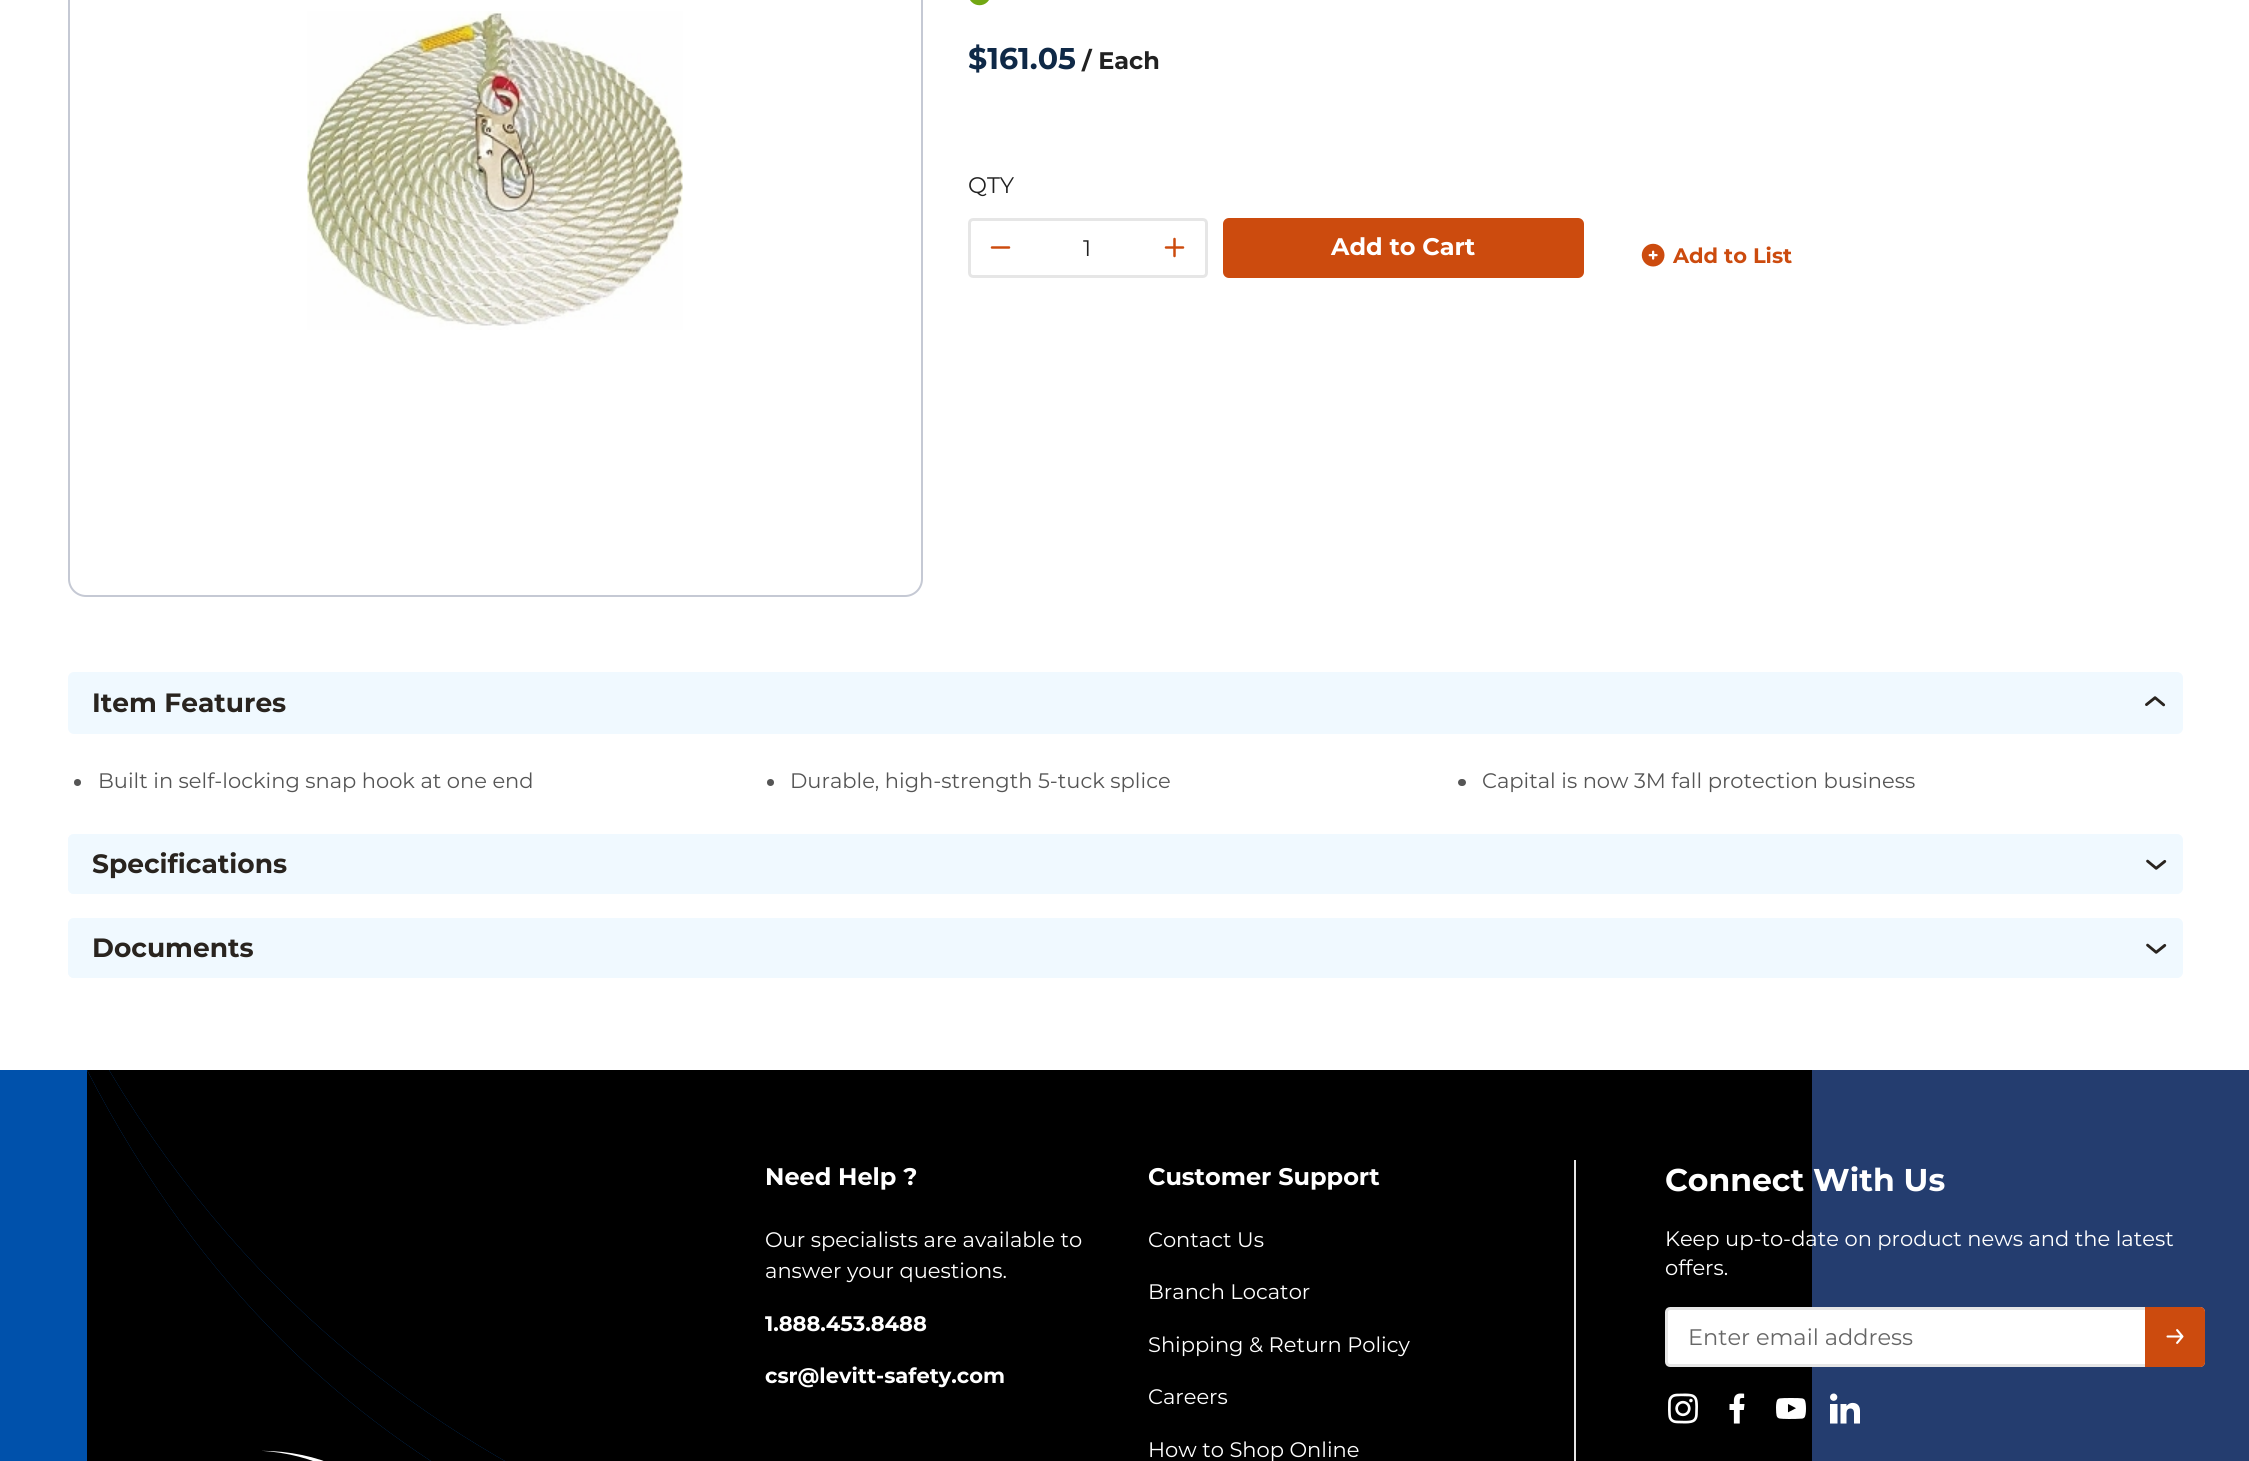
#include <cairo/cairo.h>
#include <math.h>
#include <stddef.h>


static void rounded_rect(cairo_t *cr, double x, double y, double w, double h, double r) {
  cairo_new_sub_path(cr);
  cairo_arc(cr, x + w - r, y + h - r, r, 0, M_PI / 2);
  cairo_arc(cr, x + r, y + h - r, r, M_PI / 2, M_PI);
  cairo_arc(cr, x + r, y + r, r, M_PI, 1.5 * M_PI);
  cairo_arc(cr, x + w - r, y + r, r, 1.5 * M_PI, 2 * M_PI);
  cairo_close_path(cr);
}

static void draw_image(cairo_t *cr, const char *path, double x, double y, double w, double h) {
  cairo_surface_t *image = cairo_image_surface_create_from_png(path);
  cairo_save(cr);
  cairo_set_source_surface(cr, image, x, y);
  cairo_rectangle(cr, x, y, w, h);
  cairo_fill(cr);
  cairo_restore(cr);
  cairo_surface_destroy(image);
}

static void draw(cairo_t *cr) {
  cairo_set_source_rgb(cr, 1, 1, 1);
  cairo_paint(cr);
  rounded_rect(cr, 69, -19, 853, 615, 17);
  cairo_set_source_rgb(cr, 197 / 255.0, 201 / 255.0, 212 / 255.0);
  cairo_stroke(cr);
  draw_image(cr, "images/1.png", 307, 11, 376, 319);
  draw_image(cr, "images/2.png", 970, 0, 19, 6);
  rounded_rect(cr, 969.5, 219.5, 237, 57, 3.5);
  cairo_set_source_rgb(cr, 230 / 255.0, 230 / 255.0, 230 / 255.0);
  cairo_set_line_width(cr, 3);
  cairo_stroke(cr);
  cairo_new_path(cr);
  cairo_move_to(cr, 992, 247.5);
  cairo_line_to(cr, 1009, 247.5);
  cairo_set_source_rgb(cr, 204 / 255.0, 75 / 255.0, 14 / 255.0);
  cairo_set_line_width(cr, 2.5);
  cairo_set_line_cap(cr, CAIRO_LINE_CAP_ROUND);
  cairo_set_line_join(cr, CAIRO_LINE_JOIN_ROUND);
  cairo_stroke(cr);
  cairo_new_path(cr);
  cairo_move_to(cr, 1174.5, 239);
  cairo_line_to(cr, 1174.5, 256);
  cairo_move_to(cr, 1166, 247.5);
  cairo_line_to(cr, 1183, 247.5);
  cairo_stroke(cr);
  rounded_rect(cr, 1224.5, 219.5, 358, 57, 4.5);
  cairo_fill_preserve(cr);
  cairo_set_line_width(cr, 3);
  cairo_set_line_cap(cr, CAIRO_LINE_CAP_BUTT);
  cairo_set_line_join(cr, CAIRO_LINE_JOIN_MITER);
  cairo_stroke(cr);
  draw_image(cr, "images/3.png", 1641, 243, 24, 24);
  cairo_set_source_rgb(cr, 240 / 255.0, 249 / 255.0, 1);
  rounded_rect(cr, 69, 673, 2113, 60, 5);
  cairo_fill_preserve(cr);
  cairo_set_line_width(cr, 2);
  cairo_stroke(cr);
  draw_image(cr, "images/4.png", 2145, 696, 21, 11);
  cairo_set_source_rgb(cr, 85 / 255.0, 85 / 255.0, 85 / 255.0);
  cairo_arc(cr, 77.5, 782.5, 3.5, 0, 2 * M_PI);
  cairo_fill(cr);
  cairo_arc(cr, 770.5, 782.5, 3.5, 0, 2 * M_PI);
  cairo_fill(cr);
  rounded_rect(cr, 1458, 779, 8, 7, 3.5);
  cairo_fill(cr);
  cairo_set_source_rgb(cr, 240 / 255.0, 249 / 255.0, 1);
  rounded_rect(cr, 68, 834, 2115, 60, 6);
  cairo_fill(cr);
  cairo_set_fill_rule(cr, CAIRO_FILL_RULE_EVEN_ODD);
  cairo_new_path(cr);
  cairo_move_to(cr, 74, 834);
  cairo_line_to(cr, 2176, 834);
  cairo_curve_to(cr, 2180, 834, 2182, 837, 2182, 840);
  cairo_line_to(cr, 2182, 888);
  cairo_curve_to(cr, 2182, 891, 2180, 894, 2176, 894);
  cairo_line_to(cr, 74, 894);
  cairo_curve_to(cr, 70, 894, 68, 891, 68, 888);
  cairo_line_to(cr, 68, 840);
  cairo_curve_to(cr, 68, 837, 70, 834, 74, 834);
  cairo_close_path(cr);
  cairo_move_to(cr, 74, 834);
  cairo_line_to(cr, 2176, 834);
  cairo_curve_to(cr, 2179, 834, 2181, 837, 2181, 840);
  cairo_line_to(cr, 2181, 888);
  cairo_curve_to(cr, 2181, 890, 2179, 892, 2176, 892);
  cairo_line_to(cr, 74, 892);
  cairo_curve_to(cr, 71, 892, 69, 890, 69, 888);
  cairo_line_to(cr, 69, 840);
  cairo_curve_to(cr, 69, 837, 71, 834, 74, 834);
  cairo_close_path(cr);
  cairo_fill(cr);
  draw_image(cr, "images/5.png", 2146, 859, 21, 11);
  rounded_rect(cr, 68, 918, 2115, 60, 6);
  cairo_fill(cr);
  cairo_new_path(cr);
  cairo_move_to(cr, 74, 918);
  cairo_line_to(cr, 2176, 918);
  cairo_curve_to(cr, 2180, 918, 2182, 921, 2182, 924);
  cairo_line_to(cr, 2182, 972);
  cairo_curve_to(cr, 2182, 975, 2180, 978, 2176, 978);
  cairo_line_to(cr, 74, 978);
  cairo_curve_to(cr, 70, 978, 68, 975, 68, 972);
  cairo_line_to(cr, 68, 924);
  cairo_curve_to(cr, 68, 921, 70, 918, 74, 918);
  cairo_close_path(cr);
  cairo_move_to(cr, 74, 918);
  cairo_line_to(cr, 2176, 918);
  cairo_curve_to(cr, 2179, 918, 2181, 921, 2181, 924);
  cairo_line_to(cr, 2181, 972);
  cairo_curve_to(cr, 2181, 974, 2179, 976, 2176, 976);
  cairo_line_to(cr, 74, 976);
  cairo_curve_to(cr, 71, 976, 69, 974, 69, 972);
  cairo_line_to(cr, 69, 924);
  cairo_curve_to(cr, 69, 921, 71, 918, 74, 918);
  cairo_close_path(cr);
  cairo_fill(cr);
  draw_image(cr, "images/5.png", 2146, 943, 21, 11);
  cairo_set_source_rgb(cr, 36 / 255.0, 61 / 255.0, 111 / 255.0);
  cairo_rectangle(cr, 1812, 1070, 437, 391);
  cairo_fill(cr);
  cairo_set_source_rgb(cr, 0, 81 / 255.0, 171 / 255.0);
  cairo_rectangle(cr, 0, 1070, 505, 391);
  cairo_fill(cr);
  cairo_set_source_rgb(cr, 0, 0, 0);
  cairo_set_fill_rule(cr, CAIRO_FILL_RULE_WINDING);
  cairo_new_path(cr);
  cairo_move_to(cr, 87, 1070);
  cairo_line_to(cr, 87, 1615);
  cairo_line_to(cr, 894, 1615);
  cairo_curve_to(cr, 694, 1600, 314, 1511, 87, 1070);
  cairo_close_path(cr);
  cairo_fill(cr);
  cairo_new_path(cr);
  cairo_move_to(cr, 1048, 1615);
  cairo_line_to(cr, 1025, 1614);
  cairo_curve_to(cr, 910, 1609, 400, 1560, 109, 1070);
  cairo_line_to(cr, 87, 1070);
  cairo_curve_to(cr, 314, 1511, 694, 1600, 894, 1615);
  cairo_close_path(cr);
  cairo_fill(cr);
  cairo_new_path(cr);
  cairo_move_to(cr, 109, 1070);
  cairo_curve_to(cr, 400, 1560, 910, 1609, 1025, 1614);
  cairo_curve_to(cr, 1040, 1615, 1812, 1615, 1812, 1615);
  cairo_line_to(cr, 1812, 1070);
  cairo_close_path(cr);
  cairo_fill(cr);
  draw_image(cr, "images/6.png", 262, 1450, 62, 11);
  cairo_set_source_rgb(cr, 230 / 255.0, 230 / 255.0, 230 / 255.0);
  cairo_rectangle(cr, 1574, 1160, 2, 301);
  cairo_fill(cr);
  cairo_set_source_rgb(cr, 1, 1, 1);
  rounded_rect(cr, 1666.5, 1308.5, 537, 57, 3.5);
  cairo_fill_preserve(cr);
  cairo_set_source_rgb(cr, 230 / 255.0, 230 / 255.0, 230 / 255.0);
  cairo_set_line_width(cr, 3);
  cairo_stroke(cr);
  cairo_set_source_rgb(cr, 204 / 255.0, 75 / 255.0, 14 / 255.0);
  cairo_new_path(cr);
  cairo_move_to(cr, 2145, 1307);
  cairo_line_to(cr, 2200, 1307);
  cairo_curve_to(cr, 2203, 1307, 2205, 1309, 2205, 1312);
  cairo_line_to(cr, 2205, 1362);
  cairo_curve_to(cr, 2205, 1365, 2203, 1367, 2200, 1367);
  cairo_line_to(cr, 2145, 1367);
  cairo_close_path(cr);
  cairo_fill(cr);
  draw_image(cr, "images/7.png", 2166, 1329, 18, 15);
  draw_image(cr, "images/8.png", 1668, 1393, 30, 31);
  draw_image(cr, "images/9.png", 1729, 1393, 16, 31);
  draw_image(cr, "images/10.png", 1776, 1398, 30, 21);
  draw_image(cr, "images/11.png", 1830, 1393, 30, 31);
  cairo_select_font_face(cr, "Montserrat", CAIRO_FONT_SLANT_NORMAL, CAIRO_FONT_WEIGHT_BOLD);
  cairo_set_font_size(cr, 30);
  cairo_set_source_rgb(cr, 15 / 255.0, 41 / 255.0, 71 / 255.0);
  cairo_move_to(cr, 968, 69);
  cairo_show_text(cr, "$161.05");
  cairo_set_font_size(cr, 24);
  cairo_set_source_rgb(cr, 33 / 255.0, 33 / 255.0, 33 / 255.0);
  cairo_move_to(cr, 1082, 69);
  cairo_show_text(cr, "/ Each");
  cairo_select_font_face(cr, "Montserrat", CAIRO_FONT_SLANT_NORMAL, CAIRO_FONT_WEIGHT_NORMAL);
  cairo_set_font_size(cr, 22.5);
  cairo_move_to(cr, 968, 193);
  cairo_show_text(cr, "QTY");
  cairo_move_to(cr, 1083, 256);
  cairo_show_text(cr, "1");
  cairo_select_font_face(cr, "Montserrat", CAIRO_FONT_SLANT_NORMAL, CAIRO_FONT_WEIGHT_BOLD);
  cairo_set_font_size(cr, 24);
  cairo_set_source_rgb(cr, 1, 1, 1);
  cairo_move_to(cr, 1331, 255);
  cairo_show_text(cr, "Add to Cart");
  cairo_set_font_size(cr, 21);
  cairo_set_source_rgb(cr, 204 / 255.0, 75 / 255.0, 14 / 255.0);
  cairo_move_to(cr, 1673, 263);
  cairo_show_text(cr, "Add to List");
  cairo_set_font_size(cr, 26.5);
  cairo_set_source_rgb(cr, 41 / 255.0, 36 / 255.0, 31 / 255.0);
  cairo_move_to(cr, 92, 712);
  cairo_show_text(cr, "Item Features");
  cairo_select_font_face(cr, "Montserrat", CAIRO_FONT_SLANT_NORMAL, CAIRO_FONT_WEIGHT_NORMAL);
  cairo_set_font_size(cr, 21);
  cairo_set_source_rgb(cr, 85 / 255.0, 85 / 255.0, 85 / 255.0);
  cairo_move_to(cr, 98, 788);
  cairo_show_text(cr, "Built in self-locking snap hook at one end");
  cairo_move_to(cr, 790, 788);
  cairo_show_text(cr, "Durable, high-strength 5-tuck splice");
  cairo_move_to(cr, 1482, 788);
  cairo_show_text(cr, "Capital is now 3M fall protection business");
  cairo_select_font_face(cr, "Montserrat", CAIRO_FONT_SLANT_NORMAL, CAIRO_FONT_WEIGHT_BOLD);
  cairo_set_font_size(cr, 26.5);
  cairo_set_source_rgb(cr, 41 / 255.0, 36 / 255.0, 31 / 255.0);
  cairo_move_to(cr, 92, 873);
  cairo_show_text(cr, "Specifications");
  cairo_move_to(cr, 92, 957);
  cairo_show_text(cr, "Documents");
  cairo_set_font_size(cr, 24);
  cairo_set_source_rgb(cr, 1, 1, 1);
  cairo_move_to(cr, 765, 1185);
  cairo_show_text(cr, "Need Help ?");
  cairo_select_font_face(cr, "Montserrat", CAIRO_FONT_SLANT_NORMAL, CAIRO_FONT_WEIGHT_NORMAL);
  cairo_set_font_size(cr, 21);
  cairo_move_to(cr, 765, 1247);
  cairo_show_text(cr, "Our specialists are available to");
  cairo_move_to(cr, 765, 1278);
  cairo_show_text(cr, "answer your questions.");
  cairo_select_font_face(cr, "Montserrat", CAIRO_FONT_SLANT_NORMAL, CAIRO_FONT_WEIGHT_BOLD);
  cairo_move_to(cr, 765, 1331);
  cairo_show_text(cr, "1.888.453.8488");
  cairo_move_to(cr, 765, 1383);
  cairo_show_text(cr, "csr@levitt-safety.com");
  cairo_set_font_size(cr, 24);
  cairo_move_to(cr, 1148, 1185);
  cairo_show_text(cr, "Customer Support");
  cairo_select_font_face(cr, "Montserrat", CAIRO_FONT_SLANT_NORMAL, CAIRO_FONT_WEIGHT_NORMAL);
  cairo_set_font_size(cr, 21);
  cairo_move_to(cr, 1148, 1247);
  cairo_show_text(cr, "Contact Us");
  cairo_move_to(cr, 1148, 1299);
  cairo_show_text(cr, "Branch Locator");
  cairo_move_to(cr, 1148, 1352);
  cairo_show_text(cr, "Shipping & Return Policy");
  cairo_move_to(cr, 1148, 1404);
  cairo_show_text(cr, "Careers");
  cairo_move_to(cr, 1148, 1457);
  cairo_show_text(cr, "How to Shop Online");
  cairo_select_font_face(cr, "Montserrat", CAIRO_FONT_SLANT_NORMAL, CAIRO_FONT_WEIGHT_BOLD);
  cairo_set_font_size(cr, 31.5);
  cairo_move_to(cr, 1665, 1191);
  cairo_show_text(cr, "Connect With Us");
  cairo_select_font_face(cr, "Montserrat", CAIRO_FONT_SLANT_NORMAL, CAIRO_FONT_WEIGHT_NORMAL);
  cairo_set_font_size(cr, 21);
  cairo_move_to(cr, 1665, 1246);
  cairo_show_text(cr, "Keep up-to-date on product news and the latest");
  cairo_move_to(cr, 1665, 1275);
  cairo_show_text(cr, "offers.");
  cairo_set_font_size(cr, 22.5);
  cairo_set_source_rgb(cr, 102 / 255.0, 102 / 255.0, 102 / 255.0);
  cairo_move_to(cr, 1688, 1345);
  cairo_show_text(cr, "Enter email address");
}

int main(void) {
  cairo_surface_t *surface = cairo_image_surface_create(CAIRO_FORMAT_RGB24, 2249, 1461);
  cairo_t *cr = cairo_create(surface);
  cairo_font_options_t *options = cairo_font_options_create();
  cairo_font_options_set_hint_metrics(options, CAIRO_HINT_METRICS_OFF);
  cairo_font_options_set_hint_style(options, CAIRO_HINT_STYLE_NONE);
  cairo_set_font_options(cr, options);
  cairo_set_miter_limit(cr, 4);
  draw(cr);
  cairo_surface_write_to_png(surface, "out.png");
  cairo_font_options_destroy(options);
  cairo_destroy(cr);
  cairo_surface_destroy(surface);
  return 0;
}
